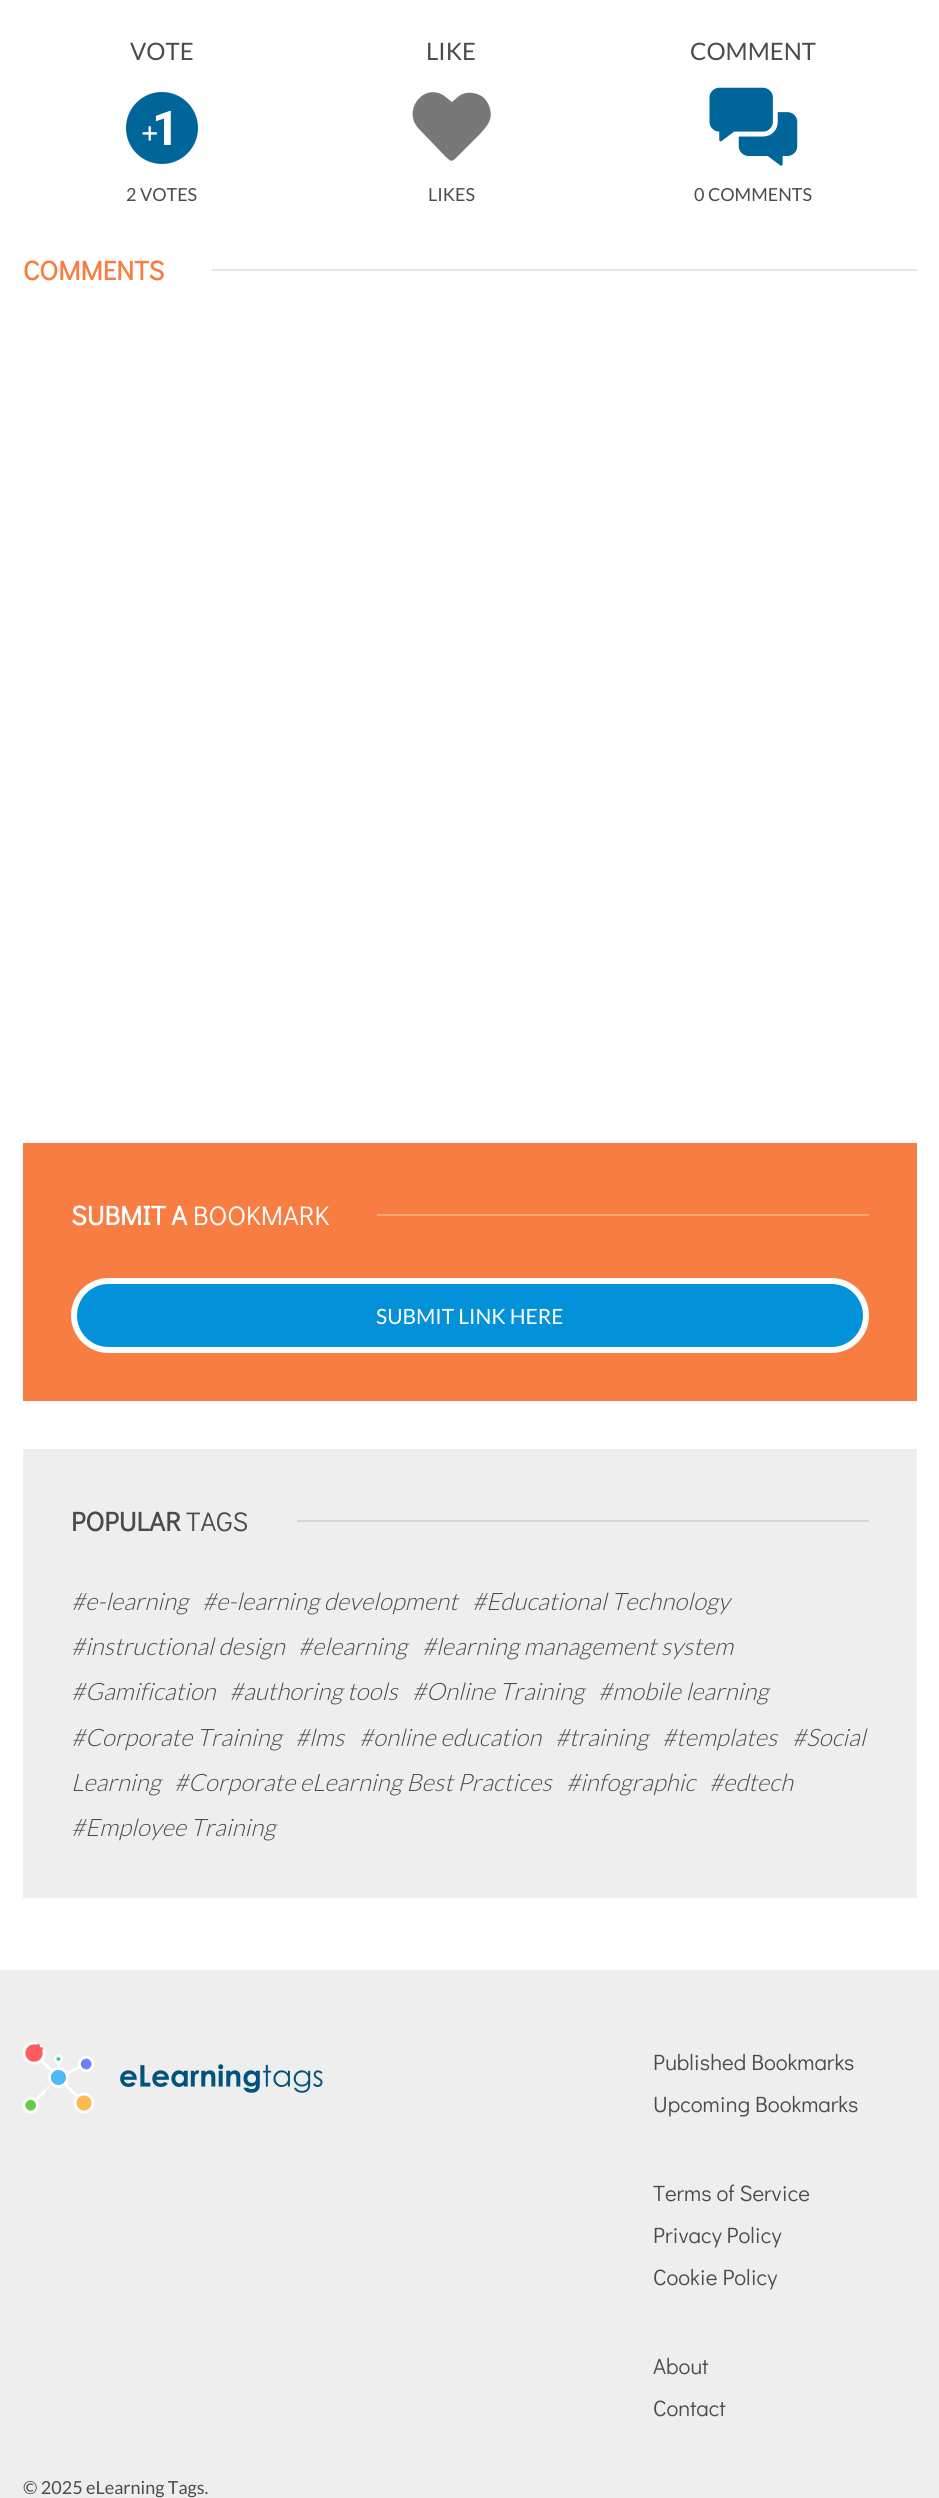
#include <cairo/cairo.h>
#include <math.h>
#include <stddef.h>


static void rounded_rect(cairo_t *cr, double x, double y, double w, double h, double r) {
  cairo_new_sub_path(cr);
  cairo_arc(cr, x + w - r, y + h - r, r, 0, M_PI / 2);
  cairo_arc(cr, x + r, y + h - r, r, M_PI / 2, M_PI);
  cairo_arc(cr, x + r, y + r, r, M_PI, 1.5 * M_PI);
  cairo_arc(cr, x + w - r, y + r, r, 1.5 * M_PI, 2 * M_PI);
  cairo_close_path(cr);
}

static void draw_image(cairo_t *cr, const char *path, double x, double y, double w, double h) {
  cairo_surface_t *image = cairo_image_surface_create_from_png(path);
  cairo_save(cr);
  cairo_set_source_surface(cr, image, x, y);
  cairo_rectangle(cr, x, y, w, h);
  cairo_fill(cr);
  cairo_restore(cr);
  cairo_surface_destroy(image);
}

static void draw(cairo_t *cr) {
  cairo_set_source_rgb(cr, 1, 1, 1);
  cairo_paint(cr);
  cairo_set_source_rgb(cr, 0, 102 / 255.0, 153 / 255.0);
  cairo_arc(cr, 162, 128, 37.5, 0, 2 * M_PI);
  cairo_fill_preserve(cr);
  cairo_set_source_rgb(cr, 1, 1, 1);
  cairo_set_line_width(cr, 3);
  cairo_stroke(cr);
  cairo_set_source_rgb(cr, 120 / 255.0, 120 / 255.0, 120 / 255.0);
  cairo_new_path(cr);
  cairo_move_to(cr, 483, 97);
  cairo_curve_to(cr, 476, 92, 466, 91, 459, 96);
  cairo_line_to(cr, 452, 102);
  cairo_curve_to(cr, 449, 100, 446, 97, 443, 95);
  cairo_curve_to(cr, 422, 83, 402, 112, 419, 129);
  cairo_line_to(cr, 443, 154);
  cairo_curve_to(cr, 452, 163, 451, 163, 460, 154);
  cairo_line_to(cr, 480, 134);
  cairo_curve_to(cr, 487, 126, 493, 120, 490, 109);
  cairo_curve_to(cr, 489, 104, 486, 100, 483, 97);
  cairo_close_path(cr);
  cairo_fill(cr);
  draw_image(cr, "images/2.png", 709, 87, 89, 79);
  cairo_set_source_rgb(cr, 228 / 255.0, 228 / 255.0, 228 / 255.0);
  cairo_rectangle(cr, 212, 269, 705, 2);
  cairo_fill(cr);
  cairo_set_source_rgb(cr, 248 / 255.0, 125 / 255.0, 66 / 255.0);
  cairo_rectangle(cr, 23, 1143, 894, 258);
  cairo_fill(cr);
  cairo_set_source_rgb(cr, 250 / 255.0, 164 / 255.0, 123 / 255.0);
  cairo_rectangle(cr, 377, 1214, 492, 2);
  cairo_fill(cr);
  cairo_set_source_rgb(cr, 3 / 255.0, 146 / 255.0, 217 / 255.0);
  rounded_rect(cr, 74, 1281, 792, 69, 34.5);
  cairo_fill_preserve(cr);
  cairo_set_source_rgb(cr, 1, 1, 1);
  cairo_set_line_width(cr, 6);
  cairo_stroke(cr);
  cairo_set_source_rgb(cr, 238 / 255.0, 238 / 255.0, 238 / 255.0);
  cairo_rectangle(cr, 23, 1449, 894, 449);
  cairo_fill(cr);
  cairo_set_source_rgb(cr, 214 / 255.0, 214 / 255.0, 214 / 255.0);
  cairo_rectangle(cr, 297, 1520, 572, 2);
  cairo_fill(cr);
  cairo_set_source_rgb(cr, 238 / 255.0, 238 / 255.0, 238 / 255.0);
  cairo_rectangle(cr, 0, 1970, 939, 528);
  cairo_fill(cr);
  draw_image(cr, "images/3.png", 23, 2042, 300, 72);
  cairo_select_font_face(cr, "Lato", CAIRO_FONT_SLANT_NORMAL, CAIRO_FONT_WEIGHT_NORMAL);
  cairo_set_font_size(cr, 24);
  cairo_set_source_rgb(cr, 75 / 255.0, 75 / 255.0, 75 / 255.0);
  cairo_move_to(cr, 130, 60);
  cairo_show_text(cr, "VOTE");
  cairo_select_font_face(cr, "Roboto", CAIRO_FONT_SLANT_NORMAL, CAIRO_FONT_WEIGHT_BOLD);
  cairo_set_font_size(cr, 48);
  cairo_set_source_rgb(cr, 1, 1, 1);
  cairo_move_to(cr, 152, 145);
  cairo_show_text(cr, "1");
  draw_image(cr, "images/1.png", 142, 126, 15, 15);
  cairo_select_font_face(cr, "Lato", CAIRO_FONT_SLANT_NORMAL, CAIRO_FONT_WEIGHT_NORMAL);
  cairo_set_font_size(cr, 18);
  cairo_set_source_rgb(cr, 75 / 255.0, 75 / 255.0, 75 / 255.0);
  cairo_move_to(cr, 126, 201);
  cairo_show_text(cr, "2 VOTES");
  cairo_set_font_size(cr, 24);
  cairo_move_to(cr, 426, 60);
  cairo_show_text(cr, "LIKE");
  cairo_set_font_size(cr, 18);
  cairo_move_to(cr, 428, 201);
  cairo_show_text(cr, "LIKES");
  cairo_set_font_size(cr, 24);
  cairo_move_to(cr, 690, 60);
  cairo_show_text(cr, "COMMENT");
  cairo_set_font_size(cr, 18);
  cairo_move_to(cr, 694, 201);
  cairo_show_text(cr, "0 COMMENTS");
  cairo_select_font_face(cr, "Didact Gothic", CAIRO_FONT_SLANT_NORMAL, CAIRO_FONT_WEIGHT_BOLD);
  cairo_set_font_size(cr, 27);
  cairo_set_source_rgb(cr, 248 / 255.0, 125 / 255.0, 66 / 255.0);
  cairo_move_to(cr, 23, 280);
  cairo_show_text(cr, "COMMENTS");
  cairo_set_source_rgb(cr, 1, 1, 1);
  cairo_move_to(cr, 71, 1225);
  cairo_show_text(cr, "SUBMIT A");
  cairo_select_font_face(cr, "Didact Gothic", CAIRO_FONT_SLANT_NORMAL, CAIRO_FONT_WEIGHT_NORMAL);
  cairo_move_to(cr, 193, 1225);
  cairo_show_text(cr, "BOOKMARK");
  cairo_select_font_face(cr, "Lato", CAIRO_FONT_SLANT_NORMAL, CAIRO_FONT_WEIGHT_NORMAL);
  cairo_set_font_size(cr, 21);
  cairo_move_to(cr, 376, 1324);
  cairo_show_text(cr, "SUBMIT LINK HERE");
  cairo_select_font_face(cr, "Didact Gothic", CAIRO_FONT_SLANT_NORMAL, CAIRO_FONT_WEIGHT_BOLD);
  cairo_set_font_size(cr, 27);
  cairo_set_source_rgb(cr, 75 / 255.0, 75 / 255.0, 75 / 255.0);
  cairo_move_to(cr, 71, 1531);
  cairo_show_text(cr, "POPULAR");
  cairo_select_font_face(cr, "Didact Gothic", CAIRO_FONT_SLANT_NORMAL, CAIRO_FONT_WEIGHT_NORMAL);
  cairo_move_to(cr, 186, 1531);
  cairo_show_text(cr, "TAGS");
  cairo_select_font_face(cr, "Lato Light", CAIRO_FONT_SLANT_ITALIC, CAIRO_FONT_WEIGHT_NORMAL);
  cairo_set_font_size(cr, 24);
  cairo_move_to(cr, 71, 1610);
  cairo_show_text(cr, "#e-learning");
  cairo_move_to(cr, 202, 1610);
  cairo_show_text(cr, "#e-learning development");
  cairo_move_to(cr, 472, 1610);
  cairo_show_text(cr, "#Educational Technology");
  cairo_move_to(cr, 71, 1655);
  cairo_show_text(cr, "#instructional design");
  cairo_move_to(cr, 298, 1655);
  cairo_show_text(cr, "#elearning");
  cairo_move_to(cr, 422, 1655);
  cairo_show_text(cr, "#learning management system");
  cairo_move_to(cr, 71, 1700);
  cairo_show_text(cr, "#Gamification");
  cairo_move_to(cr, 229, 1700);
  cairo_show_text(cr, "#authoring tools");
  cairo_move_to(cr, 412, 1700);
  cairo_show_text(cr, "#Online Training");
  cairo_move_to(cr, 598, 1700);
  cairo_show_text(cr, "#mobile learning");
  cairo_move_to(cr, 71, 1746);
  cairo_show_text(cr, "#Corporate Training");
  cairo_move_to(cr, 295, 1746);
  cairo_show_text(cr, "#lms");
  cairo_move_to(cr, 359, 1746);
  cairo_show_text(cr, "#online education");
  cairo_move_to(cr, 555, 1746);
  cairo_show_text(cr, "#training");
  cairo_move_to(cr, 662, 1746);
  cairo_show_text(cr, "#templates");
  cairo_move_to(cr, 792, 1746);
  cairo_show_text(cr, "#Social");
  cairo_move_to(cr, 71, 1791);
  cairo_show_text(cr, "Learning");
  cairo_move_to(cr, 174, 1791);
  cairo_show_text(cr, "#Corporate eLearning Best Practices");
  cairo_move_to(cr, 566, 1791);
  cairo_show_text(cr, "#infographic");
  cairo_move_to(cr, 709, 1791);
  cairo_show_text(cr, "#edtech");
  cairo_move_to(cr, 71, 1836);
  cairo_show_text(cr, "#Employee Training");
  cairo_select_font_face(cr, "Didact Gothic", CAIRO_FONT_SLANT_NORMAL, CAIRO_FONT_WEIGHT_NORMAL);
  cairo_set_font_size(cr, 22.25);
  cairo_move_to(cr, 653, 2070);
  cairo_show_text(cr, "Published Bookmarks");
  cairo_move_to(cr, 653, 2112);
  cairo_show_text(cr, "Upcoming Bookmarks");
  cairo_move_to(cr, 653, 2201);
  cairo_show_text(cr, "Terms of Service");
  cairo_move_to(cr, 653, 2243);
  cairo_show_text(cr, "Privacy Policy");
  cairo_move_to(cr, 653, 2285);
  cairo_show_text(cr, "Cookie Policy");
  cairo_move_to(cr, 653, 2374);
  cairo_show_text(cr, "About");
  cairo_move_to(cr, 653, 2416);
  cairo_show_text(cr, "Contact");
  cairo_select_font_face(cr, "Lato", CAIRO_FONT_SLANT_NORMAL, CAIRO_FONT_WEIGHT_NORMAL);
  cairo_set_font_size(cr, 18);
  cairo_move_to(cr, 23, 2494);
  cairo_show_text(cr, "© 2025 eLearning Tags.");
}

int main(void) {
  cairo_surface_t *surface = cairo_image_surface_create(CAIRO_FORMAT_RGB24, 939, 2498);
  cairo_t *cr = cairo_create(surface);
  cairo_font_options_t *options = cairo_font_options_create();
  cairo_font_options_set_hint_metrics(options, CAIRO_HINT_METRICS_OFF);
  cairo_font_options_set_hint_style(options, CAIRO_HINT_STYLE_NONE);
  cairo_set_font_options(cr, options);
  cairo_set_miter_limit(cr, 4);
  draw(cr);
  cairo_surface_write_to_png(surface, "out.png");
  cairo_font_options_destroy(options);
  cairo_destroy(cr);
  cairo_surface_destroy(surface);
  return 0;
}
